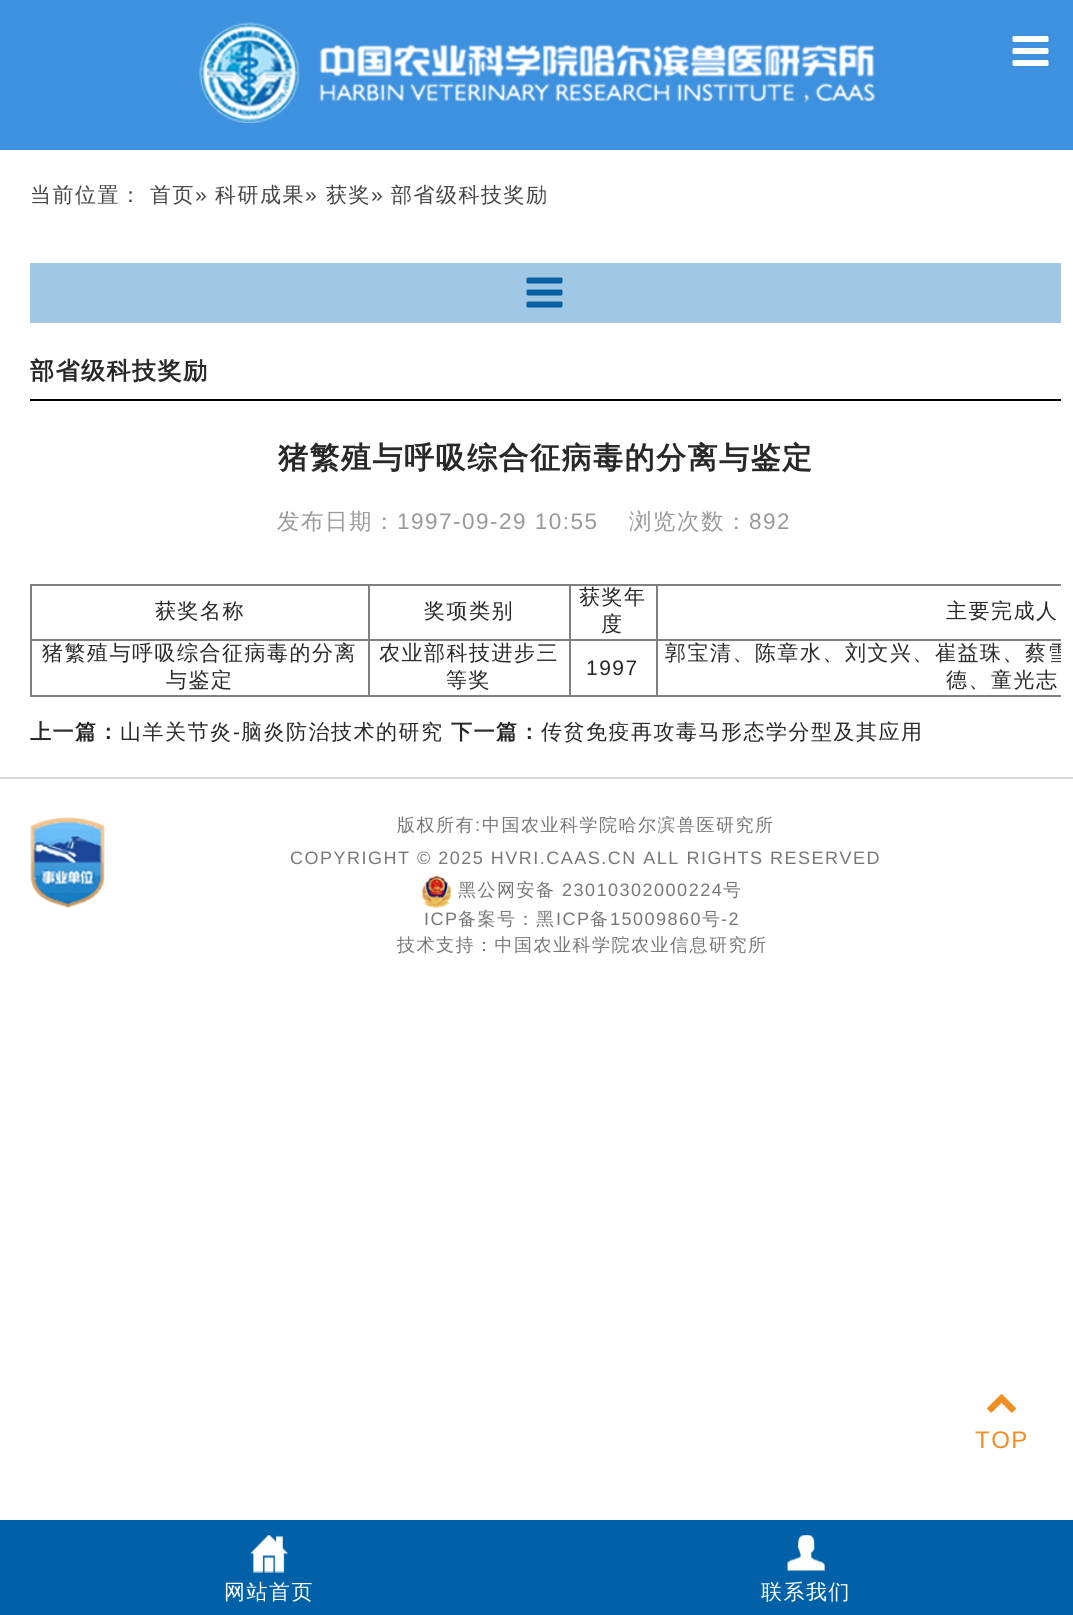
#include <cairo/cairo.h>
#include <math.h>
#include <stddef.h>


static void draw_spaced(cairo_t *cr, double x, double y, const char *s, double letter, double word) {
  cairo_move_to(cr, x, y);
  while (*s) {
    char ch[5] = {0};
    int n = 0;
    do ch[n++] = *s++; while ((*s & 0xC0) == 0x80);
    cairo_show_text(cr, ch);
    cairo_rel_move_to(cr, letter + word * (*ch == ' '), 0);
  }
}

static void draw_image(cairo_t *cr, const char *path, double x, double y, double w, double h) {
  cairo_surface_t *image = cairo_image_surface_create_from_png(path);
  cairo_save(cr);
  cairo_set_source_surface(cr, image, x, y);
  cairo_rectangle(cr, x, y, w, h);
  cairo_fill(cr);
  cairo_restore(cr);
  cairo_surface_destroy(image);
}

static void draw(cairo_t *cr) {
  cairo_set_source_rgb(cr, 1, 1, 1);
  cairo_paint(cr);
  cairo_set_source_rgb(cr, 61 / 255.0, 145 / 255.0, 223 / 255.0);
  cairo_rectangle(cr, 0, 0, 1073, 150);
  cairo_fill(cr);
  draw_image(cr, "images/1.png", 199, 22, 676, 101);
  draw_image(cr, "images/2.png", 1012, 36, 37, 30);
  cairo_set_source_rgb(cr, 160 / 255.0, 199 / 255.0, 228 / 255.0);
  cairo_rectangle(cr, 30, 263, 1031, 60);
  cairo_fill(cr);
  draw_image(cr, "images/3.png", 526, 277, 37, 31);
  cairo_set_source_rgb(cr, 0, 0, 0);
  cairo_rectangle(cr, 30, 399, 1031, 2);
  cairo_fill(cr);
  cairo_set_source_rgb(cr, 128 / 255.0, 128 / 255.0, 128 / 255.0);
  cairo_rectangle(cr, 30, 584, 1031, 2);
  cairo_fill(cr);
  cairo_rectangle(cr, 30, 695, 1031, 2);
  cairo_fill(cr);
  cairo_rectangle(cr, 30, 584, 2, 112);
  cairo_fill(cr);
  cairo_rectangle(cr, 656, 639, 405, 2);
  cairo_fill(cr);
  cairo_rectangle(cr, 656, 639, 2, 57);
  cairo_fill(cr);
  cairo_rectangle(cr, 569, 639, 88, 2);
  cairo_fill(cr);
  cairo_rectangle(cr, 569, 639, 2, 57);
  cairo_fill(cr);
  cairo_rectangle(cr, 368, 639, 202, 2);
  cairo_fill(cr);
  cairo_rectangle(cr, 368, 639, 2, 57);
  cairo_fill(cr);
  cairo_rectangle(cr, 30, 639, 339, 2);
  cairo_fill(cr);
  cairo_rectangle(cr, 368, 584, 2, 57);
  cairo_fill(cr);
  cairo_rectangle(cr, 569, 584, 2, 57);
  cairo_fill(cr);
  cairo_rectangle(cr, 656, 584, 2, 57);
  cairo_fill(cr);
  cairo_set_source_rgb(cr, 215 / 255.0, 216 / 255.0, 216 / 255.0);
  cairo_rectangle(cr, 0, 777, 1073, 2);
  cairo_fill(cr);
  draw_image(cr, "images/4.png", 30, 817, 75, 91);
  draw_image(cr, "images/5.png", 421, 875, 31, 33);
  draw_image(cr, "images/6.png", 987, 1394, 29, 19);
  cairo_set_source_rgb(cr, 0, 97 / 255.0, 168 / 255.0);
  cairo_rectangle(cr, 0, 1520, 1073, 95);
  cairo_fill(cr);
  draw_image(cr, "images/7.png", 250, 1535, 38, 38);
  draw_image(cr, "images/8.png", 787, 1535, 38, 36);
  cairo_select_font_face(cr, "WenQuanYi Zen Hei Medium", CAIRO_FONT_SLANT_NORMAL, CAIRO_FONT_WEIGHT_NORMAL);
  cairo_set_font_size(cr, 21);
  cairo_set_source_rgb(cr, 68 / 255.0, 68 / 255.0, 68 / 255.0);
  draw_spaced(cr, 30, 202, "当前位置：", 1.5, 0);
  draw_spaced(cr, 150, 202, "首页", 1.5, 0);
  cairo_select_font_face(cr, "Liberation Sans", CAIRO_FONT_SLANT_NORMAL, CAIRO_FONT_WEIGHT_NORMAL);
  draw_spaced(cr, 195, 202, "»", 1.5, 0);
  cairo_select_font_face(cr, "WenQuanYi Zen Hei Medium", CAIRO_FONT_SLANT_NORMAL, CAIRO_FONT_WEIGHT_NORMAL);
  draw_spaced(cr, 215, 202, "科研成果", 1.5, 0);
  cairo_select_font_face(cr, "Liberation Sans", CAIRO_FONT_SLANT_NORMAL, CAIRO_FONT_WEIGHT_NORMAL);
  draw_spaced(cr, 305, 202, "»", 1.5, 0);
  cairo_select_font_face(cr, "WenQuanYi Zen Hei Medium", CAIRO_FONT_SLANT_NORMAL, CAIRO_FONT_WEIGHT_NORMAL);
  draw_spaced(cr, 326, 202, "获奖", 1.5, 0);
  cairo_select_font_face(cr, "Liberation Sans", CAIRO_FONT_SLANT_NORMAL, CAIRO_FONT_WEIGHT_NORMAL);
  draw_spaced(cr, 371, 202, "»", 1.5, 0);
  cairo_select_font_face(cr, "WenQuanYi Zen Hei Medium", CAIRO_FONT_SLANT_NORMAL, CAIRO_FONT_WEIGHT_NORMAL);
  draw_spaced(cr, 391, 202, "部省级科技奖励", 1.5, 0);
  cairo_select_font_face(cr, "WenQuanYi Zen Hei", CAIRO_FONT_SLANT_NORMAL, CAIRO_FONT_WEIGHT_BOLD);
  cairo_set_font_size(cr, 24);
  cairo_set_source_rgb(cr, 40 / 255.0, 40 / 255.0, 40 / 255.0);
  draw_spaced(cr, 30, 379, "部省级科技奖励", 1.5, 0);
  cairo_set_font_size(cr, 30);
  draw_spaced(cr, 278, 468, "猪繁殖与呼吸综合征病毒的分离与鉴定", 1.5, 0);
  cairo_select_font_face(cr, "WenQuanYi Zen Hei Medium", CAIRO_FONT_SLANT_NORMAL, CAIRO_FONT_WEIGHT_NORMAL);
  cairo_set_font_size(cr, 22.5);
  cairo_set_source_rgb(cr, 153 / 255.0, 153 / 255.0, 153 / 255.0);
  draw_spaced(cr, 277, 529, "发布日期：", 1.5, 0);
  cairo_select_font_face(cr, "Liberation Sans", CAIRO_FONT_SLANT_NORMAL, CAIRO_FONT_WEIGHT_NORMAL);
  draw_spaced(cr, 397, 529, "1997-09-29 10:55", 1.5, 0);
  cairo_select_font_face(cr, "WenQuanYi Zen Hei Medium", CAIRO_FONT_SLANT_NORMAL, CAIRO_FONT_WEIGHT_NORMAL);
  draw_spaced(cr, 629, 529, "浏览次数：", 1.5, 0);
  cairo_select_font_face(cr, "Liberation Sans", CAIRO_FONT_SLANT_NORMAL, CAIRO_FONT_WEIGHT_NORMAL);
  draw_spaced(cr, 749, 529, "892", 1.5, 0);
  cairo_select_font_face(cr, "WenQuanYi Zen Hei Medium", CAIRO_FONT_SLANT_NORMAL, CAIRO_FONT_WEIGHT_NORMAL);
  cairo_set_font_size(cr, 21);
  cairo_set_source_rgb(cr, 40 / 255.0, 40 / 255.0, 40 / 255.0);
  draw_spaced(cr, 155, 618, "获奖名称", 1.5, 0);
  draw_spaced(cr, 424, 618, "奖项类别", 1.5, 0);
  draw_spaced(cr, 579, 604, "获奖年", 1.5, 0);
  draw_spaced(cr, 601, 631, "度", 1.5, 0);
  draw_spaced(cr, 946, 618, "主要完成人", 1.5, 0);
  draw_spaced(cr, 42, 660, "猪繁殖与呼吸综合征病毒的分离", 1.5, 0);
  draw_spaced(cr, 166, 687, "与鉴定", 1.5, 0);
  draw_spaced(cr, 379, 660, "农业部科技进步三", 1.5, 0);
  draw_spaced(cr, 446, 687, "等奖", 1.5, 0);
  cairo_select_font_face(cr, "Liberation Sans", CAIRO_FONT_SLANT_NORMAL, CAIRO_FONT_WEIGHT_NORMAL);
  draw_spaced(cr, 586, 675, "1997", 1.5, 0);
  cairo_save(cr);
  cairo_rectangle(cr, 30, 345, 1031, 432);
  cairo_clip(cr);
  cairo_select_font_face(cr, "WenQuanYi Zen Hei Medium", CAIRO_FONT_SLANT_NORMAL, CAIRO_FONT_WEIGHT_NORMAL);
  draw_spaced(cr, 665, 660, "郭宝清、陈章水、刘文兴、崔益珠、蔡雪", 1.5, 0);
  cairo_restore(cr);
  cairo_select_font_face(cr, "WenQuanYi Zen Hei Medium", CAIRO_FONT_SLANT_NORMAL, CAIRO_FONT_WEIGHT_NORMAL);
  draw_spaced(cr, 946, 687, "德、童光志", 1.5, 0);
  cairo_select_font_face(cr, "WenQuanYi Zen Hei", CAIRO_FONT_SLANT_NORMAL, CAIRO_FONT_WEIGHT_BOLD);
  draw_spaced(cr, 30, 739, "上一篇：", 1.5, 0);
  cairo_select_font_face(cr, "WenQuanYi Zen Hei Medium", CAIRO_FONT_SLANT_NORMAL, CAIRO_FONT_WEIGHT_NORMAL);
  draw_spaced(cr, 120, 739, "山羊关节炎", 1.5, 0);
  cairo_select_font_face(cr, "Liberation Sans", CAIRO_FONT_SLANT_NORMAL, CAIRO_FONT_WEIGHT_NORMAL);
  draw_spaced(cr, 233, 739, "-", 1.5, 0);
  cairo_select_font_face(cr, "WenQuanYi Zen Hei Medium", CAIRO_FONT_SLANT_NORMAL, CAIRO_FONT_WEIGHT_NORMAL);
  draw_spaced(cr, 241, 739, "脑炎防治技术的研究", 1.5, 0);
  cairo_select_font_face(cr, "WenQuanYi Zen Hei", CAIRO_FONT_SLANT_NORMAL, CAIRO_FONT_WEIGHT_BOLD);
  draw_spaced(cr, 451, 739, "下一篇：", 1.5, 0);
  cairo_select_font_face(cr, "WenQuanYi Zen Hei Medium", CAIRO_FONT_SLANT_NORMAL, CAIRO_FONT_WEIGHT_NORMAL);
  draw_spaced(cr, 541, 739, "传贫免疫再攻毒马形态学分型及其应用", 1.5, 0);
  cairo_set_font_size(cr, 18);
  cairo_set_source_rgb(cr, 119 / 255.0, 119 / 255.0, 119 / 255.0);
  draw_spaced(cr, 397, 831, "版权所有", 1.5, 0);
  cairo_select_font_face(cr, "Liberation Sans", CAIRO_FONT_SLANT_NORMAL, CAIRO_FONT_WEIGHT_NORMAL);
  draw_spaced(cr, 475, 831, ":", 1.5, 0);
  cairo_select_font_face(cr, "WenQuanYi Zen Hei Medium", CAIRO_FONT_SLANT_NORMAL, CAIRO_FONT_WEIGHT_NORMAL);
  draw_spaced(cr, 482, 831, "中国农业科学院哈尔滨兽医研究所", 1.5, 0);
  cairo_select_font_face(cr, "Liberation Sans", CAIRO_FONT_SLANT_NORMAL, CAIRO_FONT_WEIGHT_NORMAL);
  draw_spaced(cr, 290, 864, "COPYRIGHT © 2025 HVRI.CAAS.CN ALL RIGHTS RESERVED", 1.5, 0);
  cairo_select_font_face(cr, "WenQuanYi Zen Hei Medium", CAIRO_FONT_SLANT_NORMAL, CAIRO_FONT_WEIGHT_NORMAL);
  draw_spaced(cr, 458, 896, "黑公网安备", 1.5, 0);
  cairo_select_font_face(cr, "Liberation Sans", CAIRO_FONT_SLANT_NORMAL, CAIRO_FONT_WEIGHT_NORMAL);
  draw_spaced(cr, 562, 896, "23010302000224", 1.5, 0);
  cairo_select_font_face(cr, "WenQuanYi Zen Hei Medium", CAIRO_FONT_SLANT_NORMAL, CAIRO_FONT_WEIGHT_NORMAL);
  draw_spaced(cr, 723, 896, "号", 1.5, 0);
  cairo_select_font_face(cr, "Liberation Sans", CAIRO_FONT_SLANT_NORMAL, CAIRO_FONT_WEIGHT_NORMAL);
  draw_spaced(cr, 424, 925, "ICP", 1.5, 0);
  cairo_select_font_face(cr, "WenQuanYi Zen Hei Medium", CAIRO_FONT_SLANT_NORMAL, CAIRO_FONT_WEIGHT_NORMAL);
  draw_spaced(cr, 458, 925, "备案号：黑", 1.5, 0);
  cairo_select_font_face(cr, "Liberation Sans", CAIRO_FONT_SLANT_NORMAL, CAIRO_FONT_WEIGHT_NORMAL);
  draw_spaced(cr, 556, 925, "ICP", 1.5, 0);
  cairo_select_font_face(cr, "WenQuanYi Zen Hei Medium", CAIRO_FONT_SLANT_NORMAL, CAIRO_FONT_WEIGHT_NORMAL);
  draw_spaced(cr, 590, 925, "备", 1.5, 0);
  cairo_select_font_face(cr, "Liberation Sans", CAIRO_FONT_SLANT_NORMAL, CAIRO_FONT_WEIGHT_NORMAL);
  draw_spaced(cr, 610, 925, "15009860", 1.5, 0);
  cairo_select_font_face(cr, "WenQuanYi Zen Hei Medium", CAIRO_FONT_SLANT_NORMAL, CAIRO_FONT_WEIGHT_NORMAL);
  draw_spaced(cr, 702, 925, "号", 1.5, 0);
  cairo_select_font_face(cr, "Liberation Sans", CAIRO_FONT_SLANT_NORMAL, CAIRO_FONT_WEIGHT_NORMAL);
  draw_spaced(cr, 721, 925, "-2", 1.5, 0);
  cairo_select_font_face(cr, "WenQuanYi Zen Hei Medium", CAIRO_FONT_SLANT_NORMAL, CAIRO_FONT_WEIGHT_NORMAL);
  draw_spaced(cr, 397, 951, "技术支持：中国农业科学院农业信息研究所", 1.5, 0);
  cairo_select_font_face(cr, "Liberation Sans", CAIRO_FONT_SLANT_NORMAL, CAIRO_FONT_WEIGHT_NORMAL);
  cairo_set_font_size(cr, 24);
  cairo_set_source_rgb(cr, 241 / 255.0, 142 / 255.0, 33 / 255.0);
  draw_spaced(cr, 975, 1448, "TOP", 1.5, 0);
  cairo_select_font_face(cr, "WenQuanYi Zen Hei Medium", CAIRO_FONT_SLANT_NORMAL, CAIRO_FONT_WEIGHT_NORMAL);
  cairo_set_font_size(cr, 21);
  cairo_set_source_rgb(cr, 1, 1, 1);
  draw_spaced(cr, 224, 1599, "网站首页", 1.5, 0);
  draw_spaced(cr, 761, 1599, "联系我们", 1.5, 0);
}

int main(void) {
  cairo_surface_t *surface = cairo_image_surface_create(CAIRO_FORMAT_RGB24, 1073, 1615);
  cairo_t *cr = cairo_create(surface);
  cairo_font_options_t *options = cairo_font_options_create();
  cairo_font_options_set_hint_metrics(options, CAIRO_HINT_METRICS_OFF);
  cairo_font_options_set_hint_style(options, CAIRO_HINT_STYLE_NONE);
  cairo_set_font_options(cr, options);
  cairo_set_miter_limit(cr, 4);
  draw(cr);
  cairo_surface_write_to_png(surface, "out.png");
  cairo_font_options_destroy(options);
  cairo_destroy(cr);
  cairo_surface_destroy(surface);
  return 0;
}
